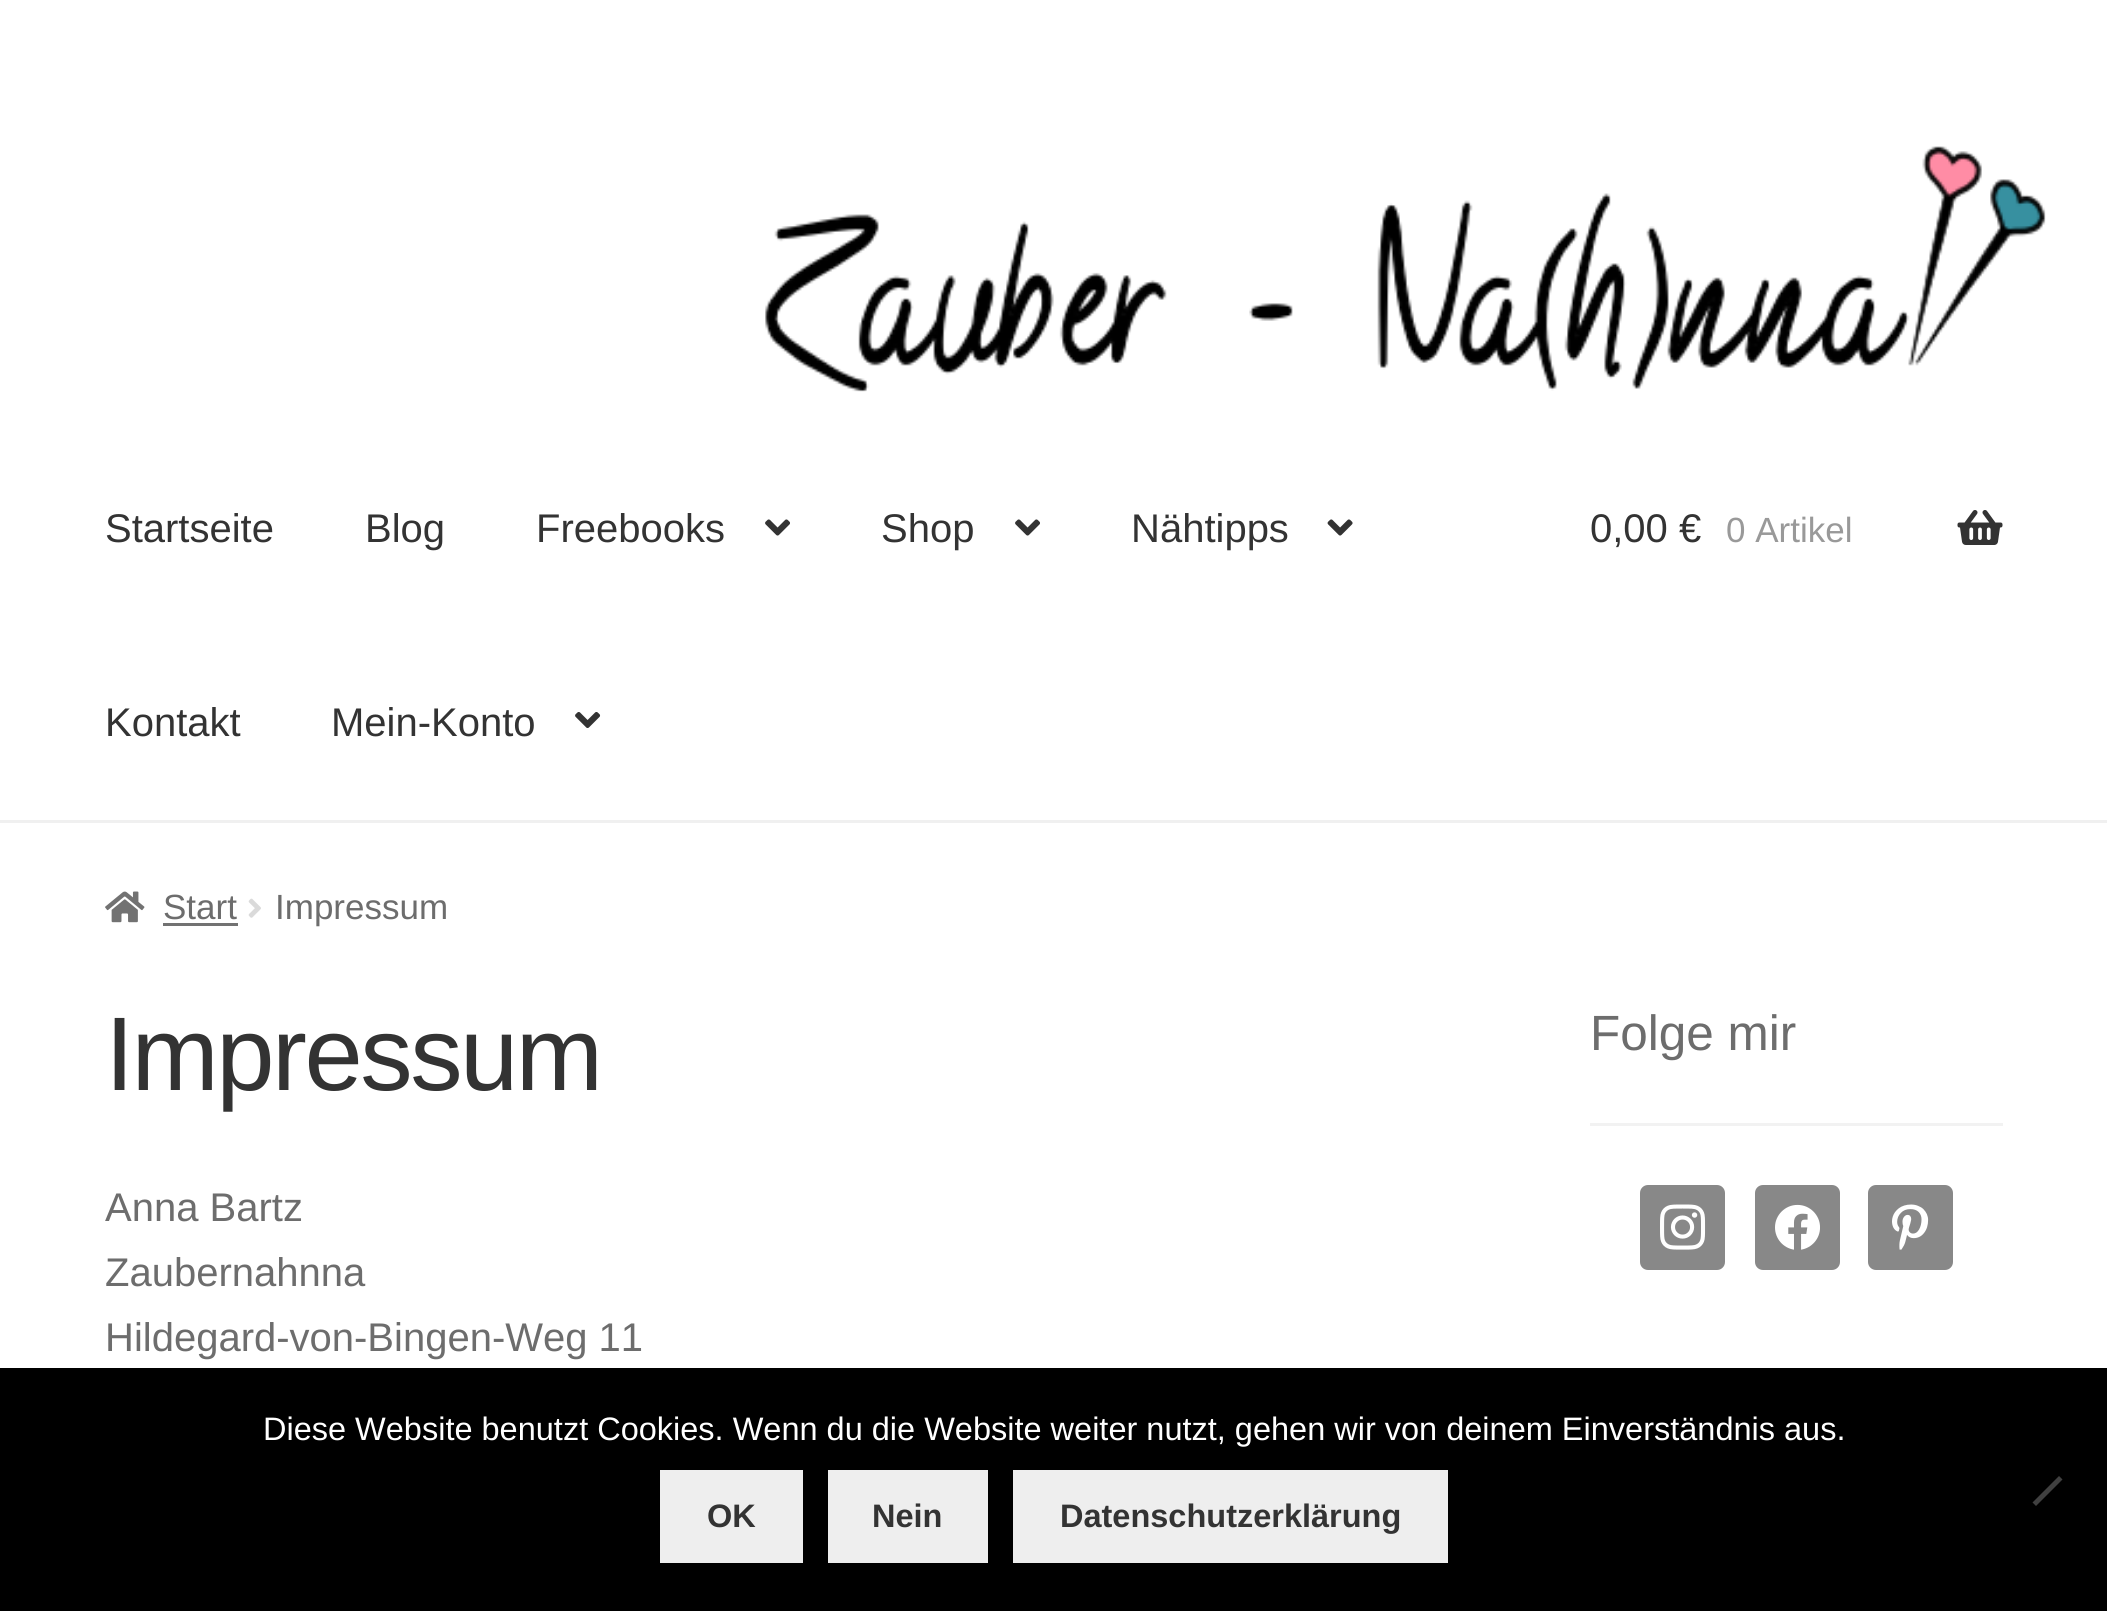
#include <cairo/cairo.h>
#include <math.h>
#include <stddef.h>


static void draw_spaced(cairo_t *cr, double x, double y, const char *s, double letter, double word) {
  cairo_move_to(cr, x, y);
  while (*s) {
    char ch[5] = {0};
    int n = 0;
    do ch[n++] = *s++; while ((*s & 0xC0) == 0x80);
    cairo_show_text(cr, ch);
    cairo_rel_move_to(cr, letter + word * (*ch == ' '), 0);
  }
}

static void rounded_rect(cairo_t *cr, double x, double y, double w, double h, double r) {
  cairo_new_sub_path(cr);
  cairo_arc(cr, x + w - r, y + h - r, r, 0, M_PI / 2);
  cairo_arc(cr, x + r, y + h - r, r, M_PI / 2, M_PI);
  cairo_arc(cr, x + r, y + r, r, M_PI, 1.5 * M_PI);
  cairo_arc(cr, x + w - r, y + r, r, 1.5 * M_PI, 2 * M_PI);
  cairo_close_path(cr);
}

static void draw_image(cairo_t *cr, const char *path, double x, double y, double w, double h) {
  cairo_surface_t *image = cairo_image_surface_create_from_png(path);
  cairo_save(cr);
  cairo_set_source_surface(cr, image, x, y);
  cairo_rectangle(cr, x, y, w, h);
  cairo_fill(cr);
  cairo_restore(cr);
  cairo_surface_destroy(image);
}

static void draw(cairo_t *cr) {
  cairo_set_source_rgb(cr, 1, 1, 1);
  cairo_paint(cr);
  cairo_set_source_rgb(cr, 240 / 255.0, 240 / 255.0, 240 / 255.0);
  cairo_rectangle(cr, 0, 820, 2107, 3);
  cairo_fill(cr);
  draw_image(cr, "images/1.png", 765, 146, 1281, 246);
  draw_image(cr, "images/2.png", 765, 519, 25, 17);
  draw_image(cr, "images/2.png", 1015, 519, 25, 17);
  draw_image(cr, "images/3.png", 1327, 519, 26, 17);
  draw_image(cr, "images/4.png", 575, 712, 26, 16);
  draw_image(cr, "images/5.png", 1957, 510, 46, 35);
  draw_image(cr, "images/6.png", 105, 891, 40, 32);
  cairo_set_source_rgb(cr, 114 / 255.0, 114 / 255.0, 114 / 255.0);
  cairo_rectangle(cr, 163, 923, 75, 3);
  cairo_fill(cr);
  draw_image(cr, "images/7.png", 248, 898, 13, 20);
  cairo_set_source_rgb(cr, 242 / 255.0, 242 / 255.0, 242 / 255.0);
  cairo_rectangle(cr, 1590, 1123, 413, 3);
  cairo_fill(cr);
  cairo_set_source_rgb(cr, 136 / 255.0, 136 / 255.0, 136 / 255.0);
  rounded_rect(cr, 1640, 1185, 85, 85, 8);
  cairo_fill(cr);
  draw_image(cr, "images/8.png", 1660, 1204, 46, 46);
  rounded_rect(cr, 1755, 1185, 85, 85, 8);
  cairo_fill(cr);
  draw_image(cr, "images/9.png", 1775, 1204, 45, 46);
  rounded_rect(cr, 1868, 1185, 85, 85, 8);
  cairo_fill(cr);
  draw_image(cr, "images/10.png", 1892, 1204, 37, 46);
  cairo_set_source_rgb(cr, 0, 0, 0);
  cairo_rectangle(cr, 0, 1368, 2107, 243);
  cairo_fill(cr);
  cairo_set_source_rgb(cr, 64 / 255.0, 64 / 255.0, 64 / 255.0);
  cairo_new_path(cr);
  cairo_move_to(cr, 2059, 1476);
  cairo_line_to(cr, 2062.5, 1479.5);
  cairo_line_to(cr, 2036, 1506);
  cairo_line_to(cr, 2032.5, 1502.5);
  cairo_close_path(cr);
  cairo_fill(cr);
  cairo_set_source_rgb(cr, 238 / 255.0, 238 / 255.0, 238 / 255.0);
  cairo_rectangle(cr, 660, 1470, 143, 93);
  cairo_fill(cr);
  cairo_rectangle(cr, 828, 1470, 160, 93);
  cairo_fill(cr);
  cairo_rectangle(cr, 1013, 1470, 435, 93);
  cairo_fill(cr);
  cairo_select_font_face(cr, "Liberation Sans", CAIRO_FONT_SLANT_NORMAL, CAIRO_FONT_WEIGHT_NORMAL);
  cairo_set_font_size(cr, 40);
  cairo_set_source_rgb(cr, 51 / 255.0, 51 / 255.0, 51 / 255.0);
  cairo_move_to(cr, 105, 542);
  cairo_show_text(cr, "Startseite");
  cairo_move_to(cr, 365, 542);
  cairo_show_text(cr, "Blog");
  cairo_move_to(cr, 536, 542);
  cairo_show_text(cr, "Freebooks");
  cairo_move_to(cr, 881, 542);
  cairo_show_text(cr, "Shop");
  cairo_move_to(cr, 1131, 542);
  cairo_show_text(cr, "Nähtipps");
  cairo_move_to(cr, 105, 736);
  cairo_show_text(cr, "Kontakt");
  cairo_move_to(cr, 331, 736);
  cairo_show_text(cr, "Mein-Konto");
  cairo_move_to(cr, 1590, 542);
  cairo_show_text(cr, "0,00 €");
  cairo_set_font_size(cr, 35);
  cairo_set_source_rgb(cr, 153 / 255.0, 153 / 255.0, 153 / 255.0);
  cairo_move_to(cr, 1726, 542);
  cairo_show_text(cr, "0 Artikel");
  cairo_set_source_rgb(cr, 109 / 255.0, 109 / 255.0, 109 / 255.0);
  cairo_move_to(cr, 163, 919);
  cairo_show_text(cr, "Start");
  cairo_move_to(cr, 275, 919);
  cairo_show_text(cr, "Impressum");
  cairo_set_font_size(cr, 104.75);
  cairo_set_source_rgb(cr, 51 / 255.0, 51 / 255.0, 51 / 255.0);
  draw_spaced(cr, 105, 1090, "Impressum", -2.5, 0);
  cairo_set_font_size(cr, 40);
  cairo_set_source_rgb(cr, 109 / 255.0, 109 / 255.0, 109 / 255.0);
  cairo_move_to(cr, 105, 1221);
  cairo_show_text(cr, "Anna Bartz");
  cairo_move_to(cr, 105, 1286);
  cairo_show_text(cr, "Zaubernahnna");
  cairo_move_to(cr, 105, 1351);
  cairo_show_text(cr, "Hildegard-von-Bingen-Weg 11");
  cairo_set_font_size(cr, 49.5);
  cairo_move_to(cr, 1590, 1050);
  cairo_show_text(cr, "Folge mir");
  cairo_set_font_size(cr, 32.5);
  cairo_set_source_rgb(cr, 1, 1, 1);
  cairo_move_to(cr, 263, 1440);
  cairo_show_text(cr, "Diese Website benutzt Cookies. Wenn du die Website weiter nutzt, gehen wir von deinem Einverständnis aus.");
  cairo_select_font_face(cr, "Liberation Sans", CAIRO_FONT_SLANT_NORMAL, CAIRO_FONT_WEIGHT_BOLD);
  cairo_set_source_rgb(cr, 51 / 255.0, 51 / 255.0, 51 / 255.0);
  cairo_move_to(cr, 707, 1527);
  cairo_show_text(cr, "OK");
  cairo_move_to(cr, 872, 1527);
  cairo_show_text(cr, "Nein");
  cairo_move_to(cr, 1060, 1527);
  cairo_show_text(cr, "Datenschutzerklärung");
}

int main(void) {
  cairo_surface_t *surface = cairo_image_surface_create(CAIRO_FORMAT_RGB24, 2107, 1611);
  cairo_t *cr = cairo_create(surface);
  cairo_font_options_t *options = cairo_font_options_create();
  cairo_font_options_set_hint_metrics(options, CAIRO_HINT_METRICS_OFF);
  cairo_font_options_set_hint_style(options, CAIRO_HINT_STYLE_NONE);
  cairo_set_font_options(cr, options);
  cairo_set_miter_limit(cr, 4);
  draw(cr);
  cairo_surface_write_to_png(surface, "out.png");
  cairo_font_options_destroy(options);
  cairo_destroy(cr);
  cairo_surface_destroy(surface);
  return 0;
}
